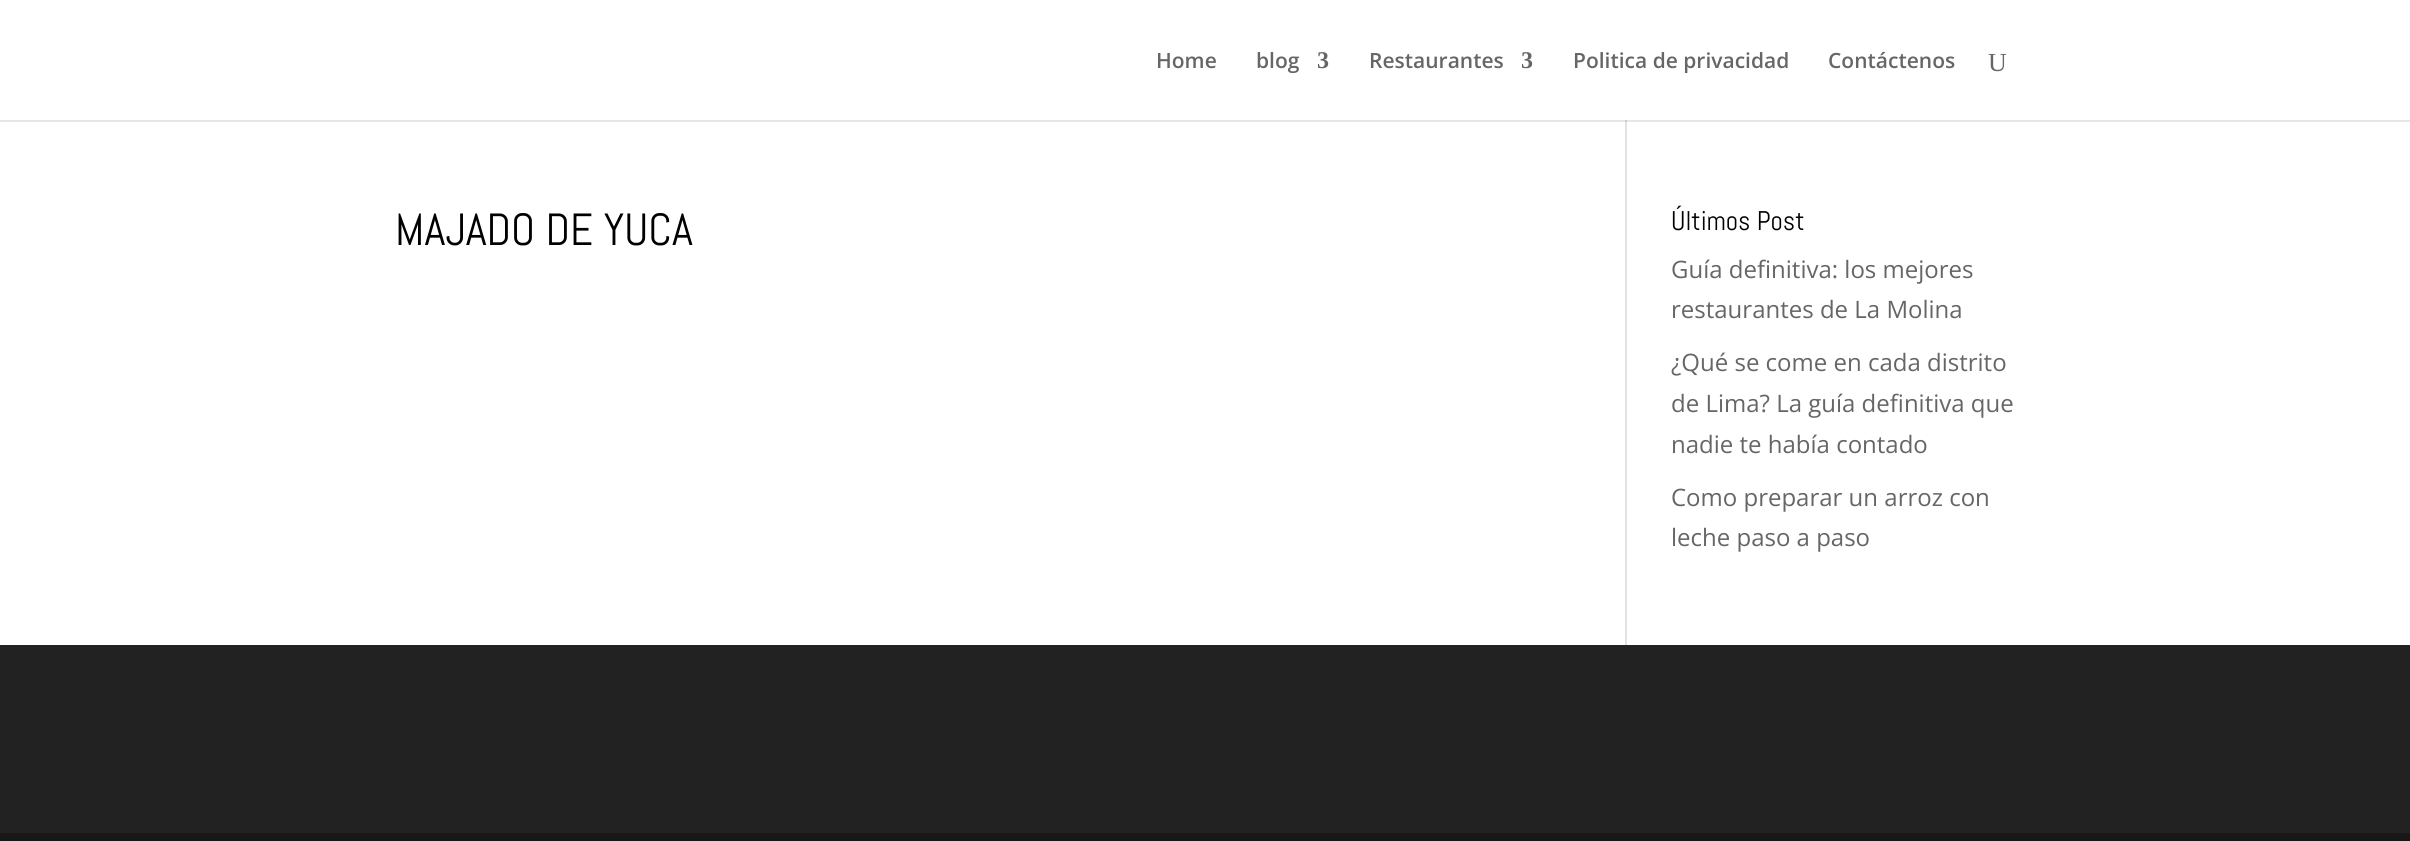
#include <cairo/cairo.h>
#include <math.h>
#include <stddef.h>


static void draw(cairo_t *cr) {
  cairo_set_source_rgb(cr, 1, 1, 1);
  cairo_paint(cr);
  cairo_set_source_rgb(cr, 226 / 255.0, 226 / 255.0, 226 / 255.0);
  cairo_rectangle(cr, 1625, 120, 2, 525);
  cairo_fill(cr);
  cairo_set_source_rgba(cr, 0, 0, 0, 0.1);
  cairo_new_path(cr);
  cairo_move_to(cr, 0, 120);
  cairo_line_to(cr, 0, 122);
  cairo_line_to(cr, 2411, 122);
  cairo_line_to(cr, 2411, 2);
  cairo_line_to(cr, 2410, 2);
  cairo_line_to(cr, 2410, 120);
  cairo_close_path(cr);
  cairo_fill(cr);
  cairo_set_source_rgb(cr, 34 / 255.0, 34 / 255.0, 34 / 255.0);
  cairo_rectangle(cr, 0, 645, 2410, 188);
  cairo_fill(cr);
  cairo_set_source_rgb(cr, 23 / 255.0, 23 / 255.0, 23 / 255.0);
  cairo_rectangle(cr, 0, 833, 2410, 8);
  cairo_fill(cr);
  cairo_select_font_face(cr, "Open Sans SemiBold", CAIRO_FONT_SLANT_NORMAL, CAIRO_FONT_WEIGHT_NORMAL);
  cairo_set_font_size(cr, 21);
  cairo_set_source_rgb(cr, 102 / 255.0, 102 / 255.0, 102 / 255.0);
  cairo_move_to(cr, 1156, 68);
  cairo_show_text(cr, "Home");
  cairo_move_to(cr, 1256, 68);
  cairo_show_text(cr, "blog");
  cairo_select_font_face(cr, "Liberation Serif", CAIRO_FONT_SLANT_NORMAL, CAIRO_FONT_WEIGHT_BOLD);
  cairo_set_font_size(cr, 24);
  cairo_move_to(cr, 1317, 68);
  cairo_show_text(cr, "3");
  cairo_select_font_face(cr, "Open Sans SemiBold", CAIRO_FONT_SLANT_NORMAL, CAIRO_FONT_WEIGHT_NORMAL);
  cairo_set_font_size(cr, 21);
  cairo_move_to(cr, 1369, 68);
  cairo_show_text(cr, "Restaurantes");
  cairo_select_font_face(cr, "Liberation Serif", CAIRO_FONT_SLANT_NORMAL, CAIRO_FONT_WEIGHT_BOLD);
  cairo_set_font_size(cr, 24);
  cairo_move_to(cr, 1521, 68);
  cairo_show_text(cr, "3");
  cairo_select_font_face(cr, "Open Sans SemiBold", CAIRO_FONT_SLANT_NORMAL, CAIRO_FONT_WEIGHT_NORMAL);
  cairo_set_font_size(cr, 21);
  cairo_move_to(cr, 1573, 68);
  cairo_show_text(cr, "Politica de privacidad");
  cairo_move_to(cr, 1828, 68);
  cairo_show_text(cr, "Contáctenos");
  cairo_select_font_face(cr, "Liberation Serif", CAIRO_FONT_SLANT_NORMAL, CAIRO_FONT_WEIGHT_NORMAL);
  cairo_set_font_size(cr, 26);
  cairo_move_to(cr, 1988, 71);
  cairo_show_text(cr, "U");
  cairo_select_font_face(cr, "Abel", CAIRO_FONT_SLANT_NORMAL, CAIRO_FONT_WEIGHT_NORMAL);
  cairo_set_font_size(cr, 45);
  cairo_set_source_rgb(cr, 0, 0, 0);
  cairo_move_to(cr, 395, 245);
  cairo_show_text(cr, "MAJADO DE YUCA");
  cairo_set_font_size(cr, 27);
  cairo_move_to(cr, 1671, 230);
  cairo_show_text(cr, "Últimos Post");
  cairo_select_font_face(cr, "Open Sans", CAIRO_FONT_SLANT_NORMAL, CAIRO_FONT_WEIGHT_NORMAL);
  cairo_set_font_size(cr, 24);
  cairo_set_source_rgb(cr, 102 / 255.0, 102 / 255.0, 102 / 255.0);
  cairo_move_to(cr, 1671, 278);
  cairo_show_text(cr, "Guía definitiva: los mejores");
  cairo_move_to(cr, 1671, 318);
  cairo_show_text(cr, "restaurantes de La Molina");
  cairo_move_to(cr, 1671, 371);
  cairo_show_text(cr, "¿Qué se come en cada distrito");
  cairo_move_to(cr, 1671, 412);
  cairo_show_text(cr, "de Lima? La guía definitiva que");
  cairo_move_to(cr, 1671, 453);
  cairo_show_text(cr, "nadie te había contado");
  cairo_move_to(cr, 1671, 506);
  cairo_show_text(cr, "Como preparar un arroz con");
  cairo_move_to(cr, 1671, 546);
  cairo_show_text(cr, "leche paso a paso");
}

int main(void) {
  cairo_surface_t *surface = cairo_image_surface_create(CAIRO_FORMAT_RGB24, 2410, 841);
  cairo_t *cr = cairo_create(surface);
  cairo_font_options_t *options = cairo_font_options_create();
  cairo_font_options_set_hint_metrics(options, CAIRO_HINT_METRICS_OFF);
  cairo_font_options_set_hint_style(options, CAIRO_HINT_STYLE_NONE);
  cairo_set_font_options(cr, options);
  cairo_set_miter_limit(cr, 4);
  draw(cr);
  cairo_surface_write_to_png(surface, "out.png");
  cairo_font_options_destroy(options);
  cairo_destroy(cr);
  cairo_surface_destroy(surface);
  return 0;
}
